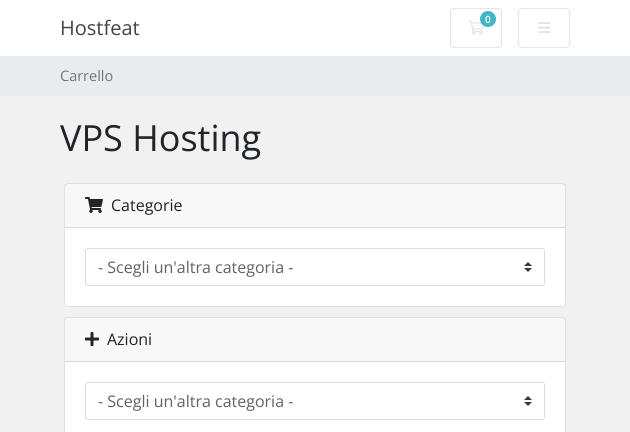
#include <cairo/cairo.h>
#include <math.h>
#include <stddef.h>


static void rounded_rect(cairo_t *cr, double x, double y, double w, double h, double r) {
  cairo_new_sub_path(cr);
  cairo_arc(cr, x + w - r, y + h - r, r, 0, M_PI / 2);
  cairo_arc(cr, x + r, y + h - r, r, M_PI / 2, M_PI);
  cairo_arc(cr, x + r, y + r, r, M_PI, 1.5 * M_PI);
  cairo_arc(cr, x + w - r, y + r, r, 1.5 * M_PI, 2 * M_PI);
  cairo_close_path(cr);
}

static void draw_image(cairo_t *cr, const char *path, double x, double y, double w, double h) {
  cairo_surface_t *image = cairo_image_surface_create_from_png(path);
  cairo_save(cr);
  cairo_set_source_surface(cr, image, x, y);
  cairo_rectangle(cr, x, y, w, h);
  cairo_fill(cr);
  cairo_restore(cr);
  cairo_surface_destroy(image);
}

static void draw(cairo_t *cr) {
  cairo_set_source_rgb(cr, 241 / 255.0, 241 / 255.0, 241 / 255.0);
  cairo_paint(cr);
  cairo_set_source_rgb(cr, 1, 1, 1);
  cairo_rectangle(cr, 0, 0, 630, 56);
  cairo_fill(cr);
  rounded_rect(cr, 450.5, 8.5, 51, 39, 3.5);
  cairo_set_source_rgb(cr, 229 / 255.0, 229 / 255.0, 229 / 255.0);
  cairo_set_line_width(cr, 1);
  cairo_stroke(cr);
  draw_image(cr, "images/1.png", 468, 20, 16, 15);
  cairo_set_source_rgba(cr, 23 / 255.0, 162 / 255.0, 184 / 255.0, 0.8);
  cairo_arc(cr, 488, 19, 8, 0, 2 * M_PI);
  cairo_fill(cr);
  rounded_rect(cr, 518.5, 8.5, 51, 39, 3.5);
  cairo_set_source_rgb(cr, 229 / 255.0, 229 / 255.0, 229 / 255.0);
  cairo_stroke(cr);
  draw_image(cr, "images/2.png", 538, 22, 13, 11);
  cairo_set_source_rgb(cr, 233 / 255.0, 236 / 255.0, 239 / 255.0);
  cairo_rectangle(cr, 0, 56, 630, 40);
  cairo_fill(cr);
  cairo_set_source_rgb(cr, 1, 1, 1);
  rounded_rect(cr, 64, 183, 502, 124, 4);
  cairo_fill(cr);
  rounded_rect(cr, 64.5, 183.5, 501, 123, 3.5);
  cairo_set_source_rgba(cr, 0, 0, 0, 0.12);
  cairo_stroke(cr);
  cairo_set_source_rgba(cr, 0, 0, 0, 0.03);
  cairo_rectangle(cr, 65, 184, 500, 43);
  cairo_fill(cr);
  cairo_set_source_rgb(cr, 216 / 255.0, 216 / 255.0, 216 / 255.0);
  cairo_rectangle(cr, 65, 227, 500, 1);
  cairo_fill(cr);
  draw_image(cr, "images/3.png", 85, 197, 18, 16);
  draw_image(cr, "images/4.png", 524, 262, 8, 10);
  rounded_rect(cr, 85.5, 248.5, 459, 37, 2.5);
  cairo_set_source_rgb(cr, 221 / 255.0, 221 / 255.0, 221 / 255.0);
  cairo_stroke(cr);
  cairo_set_source_rgb(cr, 1, 1, 1);
  rounded_rect(cr, 64, 317, 502, 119, 4);
  cairo_fill(cr);
  rounded_rect(cr, 64.5, 317.5, 501, 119, 3.5);
  cairo_set_source_rgba(cr, 0, 0, 0, 0.12);
  cairo_stroke(cr);
  cairo_set_source_rgba(cr, 0, 0, 0, 0.03);
  cairo_rectangle(cr, 65, 318, 500, 43);
  cairo_fill(cr);
  cairo_set_source_rgb(cr, 216 / 255.0, 216 / 255.0, 216 / 255.0);
  cairo_rectangle(cr, 65, 361, 500, 1);
  cairo_fill(cr);
  draw_image(cr, "images/5.png", 85, 332, 14, 14);
  draw_image(cr, "images/4.png", 524, 396, 8, 10);
  rounded_rect(cr, 85.5, 382.5, 459, 37, 2.5);
  cairo_set_source_rgb(cr, 221 / 255.0, 221 / 255.0, 221 / 255.0);
  cairo_stroke(cr);
  cairo_select_font_face(cr, "Open Sans", CAIRO_FONT_SLANT_NORMAL, CAIRO_FONT_WEIGHT_NORMAL);
  cairo_set_font_size(cr, 20);
  cairo_set_source_rgb(cr, 68 / 255.0, 68 / 255.0, 68 / 255.0);
  cairo_move_to(cr, 60, 35);
  cairo_show_text(cr, "Hostfeat");
  cairo_select_font_face(cr, "Open Sans SemiBold", CAIRO_FONT_SLANT_NORMAL, CAIRO_FONT_WEIGHT_NORMAL);
  cairo_set_font_size(cr, 10);
  cairo_set_source_rgb(cr, 1, 1, 1);
  cairo_move_to(cr, 485, 23);
  cairo_show_text(cr, "0");
  cairo_select_font_face(cr, "Open Sans", CAIRO_FONT_SLANT_NORMAL, CAIRO_FONT_WEIGHT_NORMAL);
  cairo_set_font_size(cr, 14.5);
  cairo_set_source_rgb(cr, 108 / 255.0, 117 / 255.0, 125 / 255.0);
  cairo_move_to(cr, 60, 81);
  cairo_show_text(cr, "Carrello");
  cairo_set_font_size(cr, 36);
  cairo_set_source_rgb(cr, 33 / 255.0, 37 / 255.0, 41 / 255.0);
  cairo_move_to(cr, 60, 151);
  cairo_show_text(cr, "VPS Hosting");
  cairo_set_font_size(cr, 16);
  cairo_move_to(cr, 111, 211);
  cairo_show_text(cr, "Categorie");
  cairo_set_source_rgb(cr, 98 / 255.0, 98 / 255.0, 98 / 255.0);
  cairo_move_to(cr, 98, 273);
  cairo_show_text(cr, "- Scegli un'altra categoria -");
  cairo_set_source_rgb(cr, 33 / 255.0, 37 / 255.0, 41 / 255.0);
  cairo_move_to(cr, 107, 345);
  cairo_show_text(cr, "Azioni");
  cairo_set_source_rgb(cr, 98 / 255.0, 98 / 255.0, 98 / 255.0);
  cairo_move_to(cr, 98, 407);
  cairo_show_text(cr, "- Scegli un'altra categoria -");
}

int main(void) {
  cairo_surface_t *surface = cairo_image_surface_create(CAIRO_FORMAT_RGB24, 630, 432);
  cairo_t *cr = cairo_create(surface);
  cairo_font_options_t *options = cairo_font_options_create();
  cairo_font_options_set_hint_metrics(options, CAIRO_HINT_METRICS_OFF);
  cairo_font_options_set_hint_style(options, CAIRO_HINT_STYLE_NONE);
  cairo_set_font_options(cr, options);
  cairo_set_miter_limit(cr, 4);
  draw(cr);
  cairo_surface_write_to_png(surface, "out.png");
  cairo_font_options_destroy(options);
  cairo_destroy(cr);
  cairo_surface_destroy(surface);
  return 0;
}
